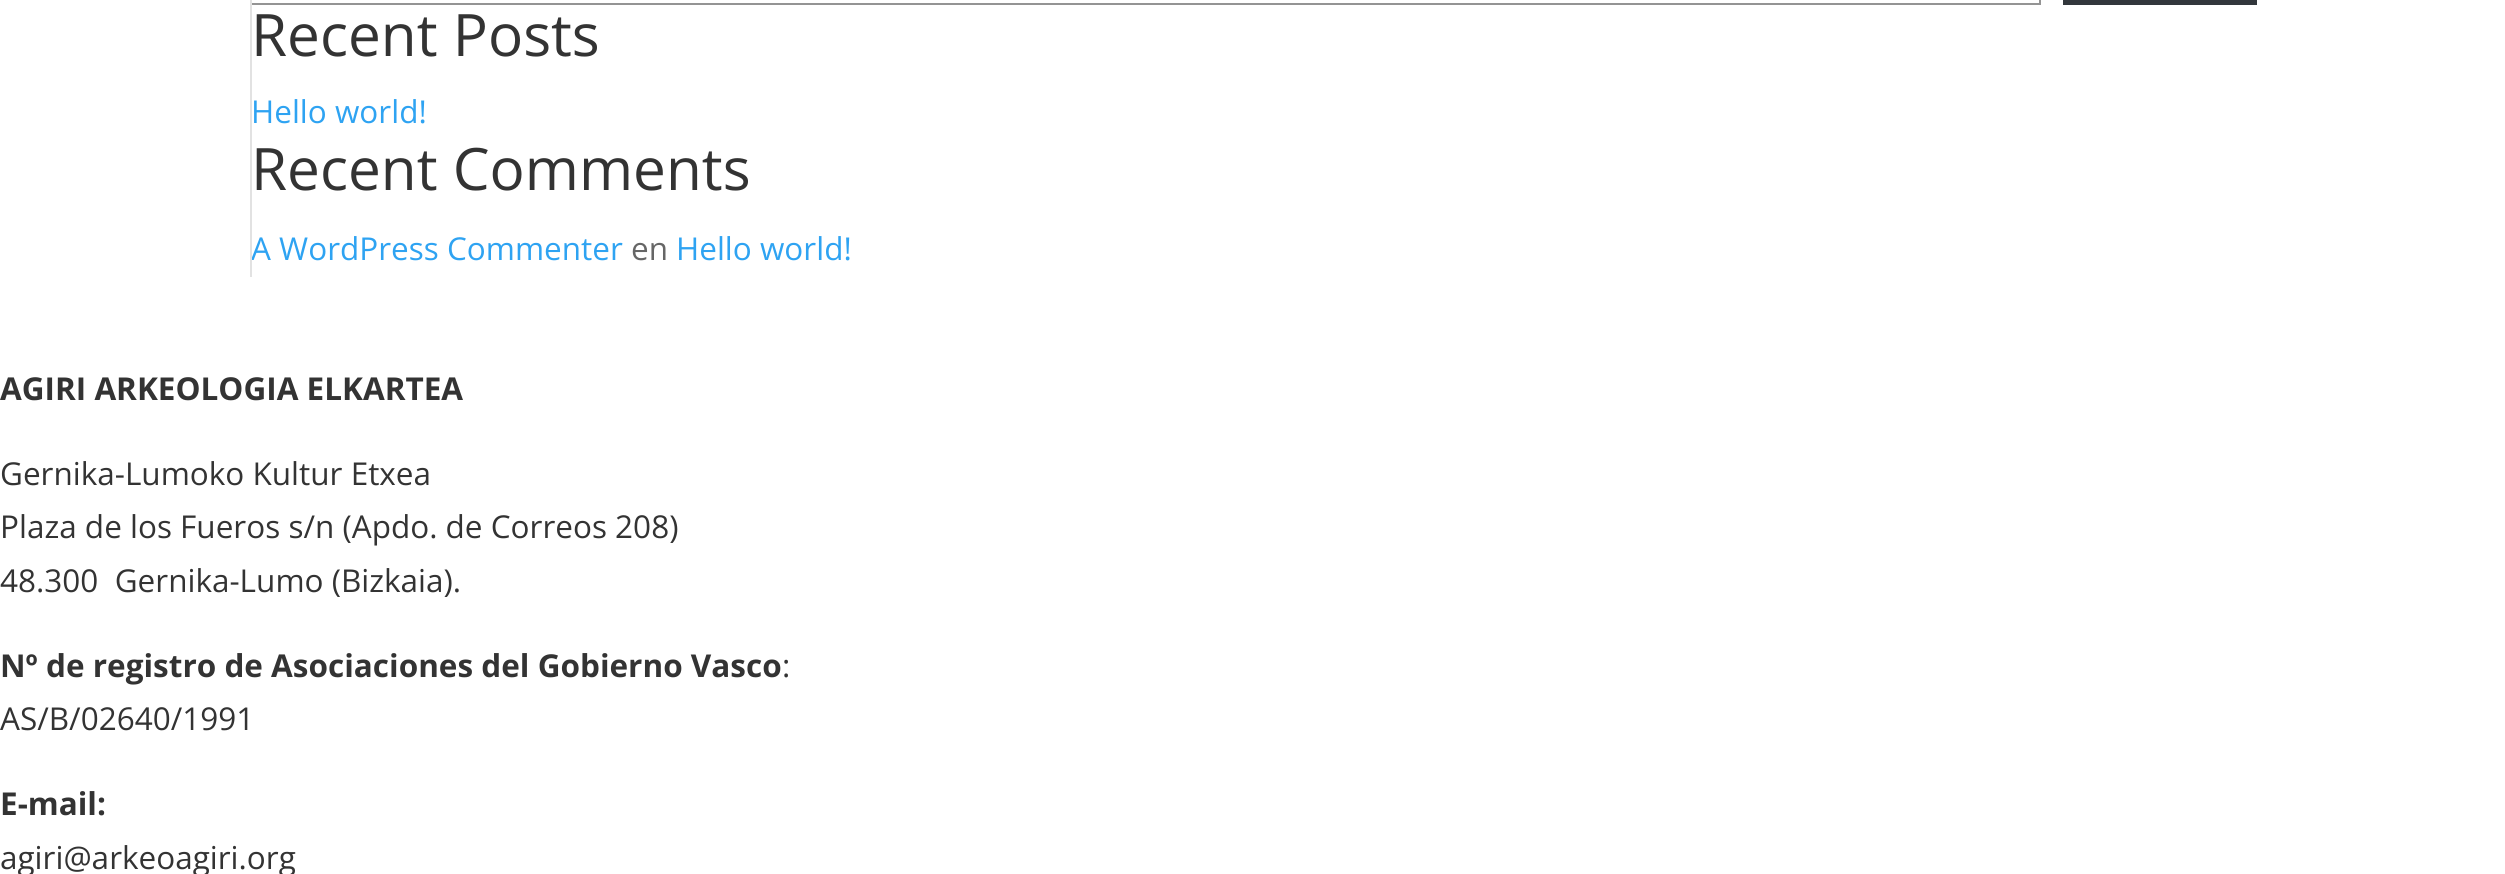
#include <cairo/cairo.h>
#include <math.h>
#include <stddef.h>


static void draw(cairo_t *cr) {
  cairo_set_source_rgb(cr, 1, 1, 1);
  cairo_paint(cr);
  cairo_rectangle(cr, 251, -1, 1789, 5);
  cairo_set_source_rgb(cr, 148 / 255.0, 148 / 255.0, 148 / 255.0);
  cairo_stroke(cr);
  cairo_set_source_rgb(cr, 50 / 255.0, 55 / 255.0, 60 / 255.0);
  cairo_rectangle(cr, 2063, 0, 194, 5);
  cairo_fill(cr);
  cairo_select_font_face(cr, "Open Sans", CAIRO_FONT_SLANT_NORMAL, CAIRO_FONT_WEIGHT_NORMAL);
  cairo_set_font_size(cr, 58.5);
  cairo_set_source_rgb(cr, 51 / 255.0, 51 / 255.0, 51 / 255.0);
  cairo_move_to(cr, 251, 56);
  cairo_show_text(cr, "Recent Posts");
  cairo_set_font_size(cr, 31.5);
  cairo_set_source_rgb(cr, 46 / 255.0, 163 / 255.0, 242 / 255.0);
  cairo_move_to(cr, 251, 123);
  cairo_show_text(cr, "Hello world!");
  cairo_set_font_size(cr, 58.5);
  cairo_set_source_rgb(cr, 51 / 255.0, 51 / 255.0, 51 / 255.0);
  cairo_move_to(cr, 251, 190);
  cairo_show_text(cr, "Recent Comments");
  cairo_set_font_size(cr, 31.5);
  cairo_set_source_rgb(cr, 46 / 255.0, 163 / 255.0, 242 / 255.0);
  cairo_move_to(cr, 251, 260);
  cairo_show_text(cr, "A WordPress Commenter");
  cairo_set_source_rgb(cr, 226 / 255.0, 226 / 255.0, 226 / 255.0);
  cairo_rectangle(cr, 250, 0, 2, 277);
  cairo_fill(cr);
  cairo_set_source_rgb(cr, 102 / 255.0, 102 / 255.0, 102 / 255.0);
  cairo_move_to(cr, 631, 260);
  cairo_show_text(cr, "en");
  cairo_set_source_rgb(cr, 46 / 255.0, 163 / 255.0, 242 / 255.0);
  cairo_move_to(cr, 676, 260);
  cairo_show_text(cr, "Hello world!");
  cairo_select_font_face(cr, "Open Sans", CAIRO_FONT_SLANT_NORMAL, CAIRO_FONT_WEIGHT_BOLD);
  cairo_set_source_rgb(cr, 51 / 255.0, 51 / 255.0, 51 / 255.0);
  cairo_move_to(cr, 0, 400);
  cairo_show_text(cr, "AGIRI ARKEOLOGIA ELKARTEA");
  cairo_select_font_face(cr, "Open Sans", CAIRO_FONT_SLANT_NORMAL, CAIRO_FONT_WEIGHT_NORMAL);
  cairo_move_to(cr, 0, 485);
  cairo_show_text(cr, "Gernika-Lumoko Kultur Etxea");
  cairo_move_to(cr, 0, 538);
  cairo_show_text(cr, "Plaza de los Fueros s/n (Apdo. de Correos 208)");
  cairo_move_to(cr, 0, 592);
  cairo_show_text(cr, "48.300  Gernika-Lumo (Bizkaia).");
  cairo_select_font_face(cr, "Open Sans", CAIRO_FONT_SLANT_NORMAL, CAIRO_FONT_WEIGHT_BOLD);
  cairo_move_to(cr, 0, 677);
  cairo_show_text(cr, "Nº de registro de Asociaciones del Gobierno Vasco");
  cairo_select_font_face(cr, "Open Sans", CAIRO_FONT_SLANT_NORMAL, CAIRO_FONT_WEIGHT_NORMAL);
  cairo_move_to(cr, 782, 677);
  cairo_show_text(cr, ":");
  cairo_move_to(cr, 0, 730);
  cairo_show_text(cr, "AS/B/02640/1991");
  cairo_select_font_face(cr, "Open Sans", CAIRO_FONT_SLANT_NORMAL, CAIRO_FONT_WEIGHT_BOLD);
  cairo_move_to(cr, 0, 815);
  cairo_show_text(cr, "E-mail:");
  cairo_select_font_face(cr, "Open Sans", CAIRO_FONT_SLANT_NORMAL, CAIRO_FONT_WEIGHT_NORMAL);
  cairo_move_to(cr, 0, 869);
  cairo_show_text(cr, "agiri@arkeoagiri.org");
}

int main(void) {
  cairo_surface_t *surface = cairo_image_surface_create(CAIRO_FORMAT_RGB24, 2505, 874);
  cairo_t *cr = cairo_create(surface);
  cairo_font_options_t *options = cairo_font_options_create();
  cairo_font_options_set_hint_metrics(options, CAIRO_HINT_METRICS_OFF);
  cairo_font_options_set_hint_style(options, CAIRO_HINT_STYLE_NONE);
  cairo_set_font_options(cr, options);
  cairo_set_miter_limit(cr, 4);
  draw(cr);
  cairo_surface_write_to_png(surface, "out.png");
  cairo_font_options_destroy(options);
  cairo_destroy(cr);
  cairo_surface_destroy(surface);
  return 0;
}
